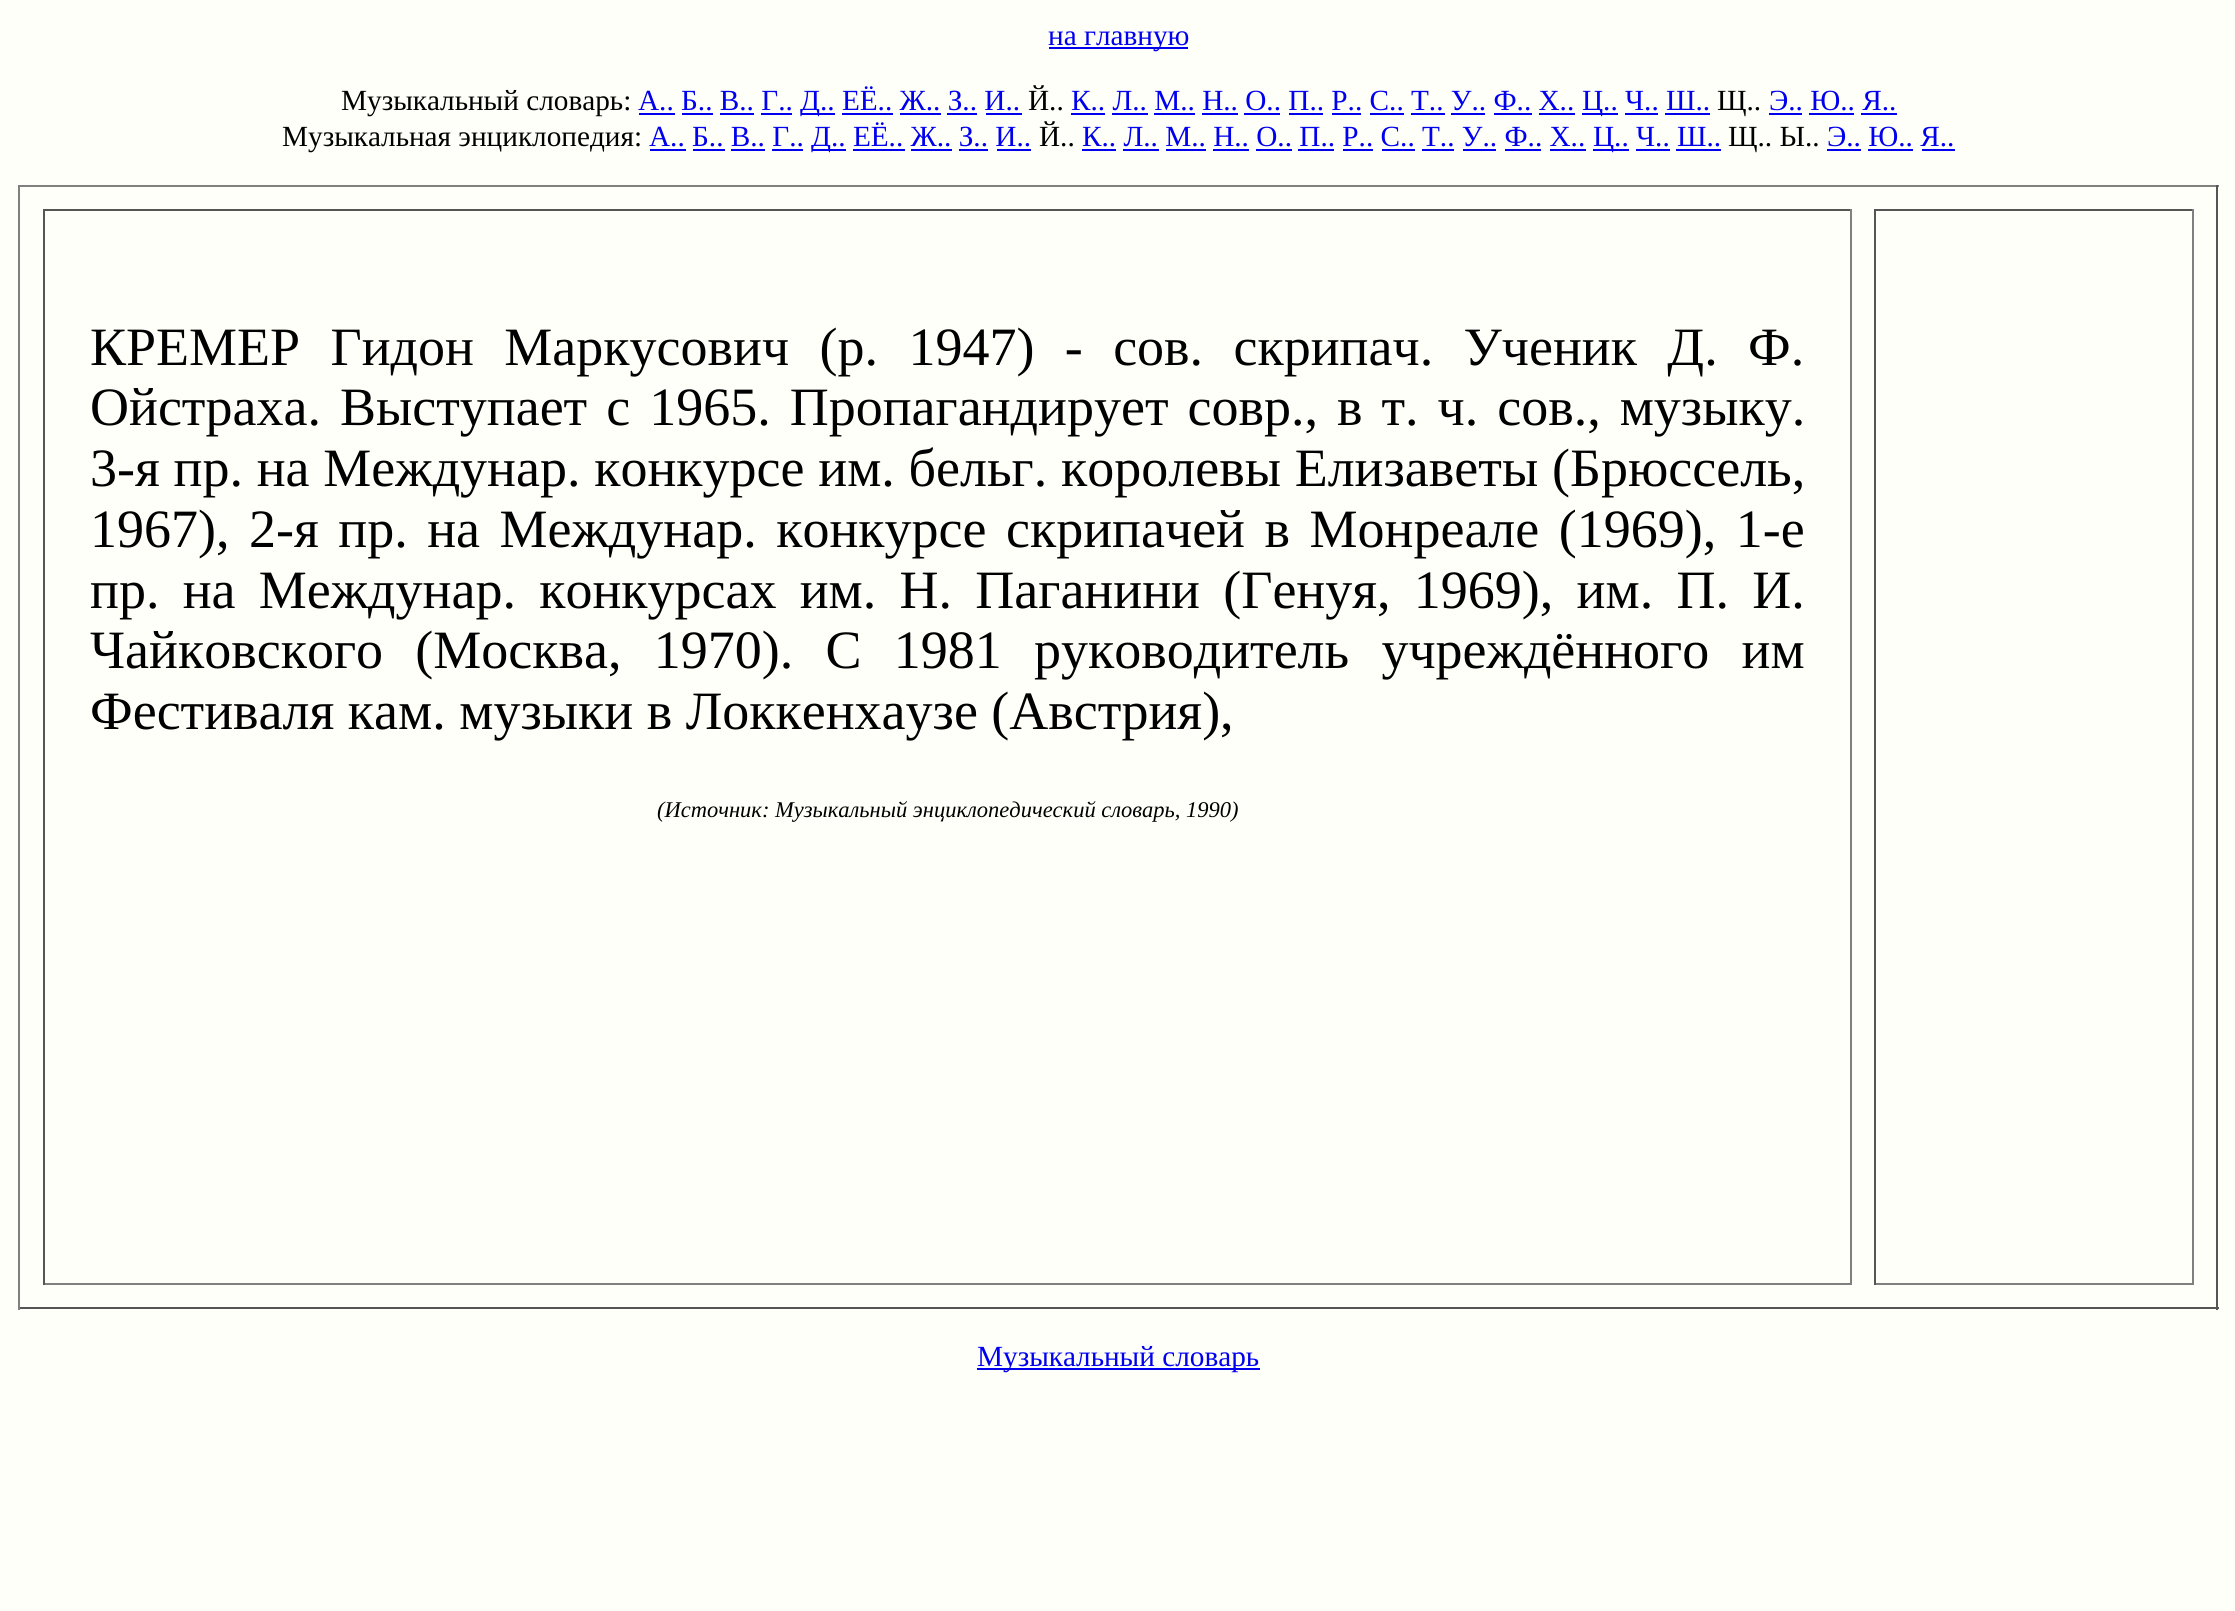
#include <cairo/cairo.h>
#include <math.h>
#include <stddef.h>


static void draw_spaced(cairo_t *cr, double x, double y, const char *s, double letter, double word) {
  cairo_move_to(cr, x, y);
  while (*s) {
    char ch[5] = {0};
    int n = 0;
    do ch[n++] = *s++; while ((*s & 0xC0) == 0x80);
    cairo_show_text(cr, ch);
    cairo_rel_move_to(cr, letter + word * (*ch == ' '), 0);
  }
}

static void draw(cairo_t *cr) {
  cairo_set_source_rgb(cr, 1, 1, 250 / 255.0);
  cairo_paint(cr);
  cairo_set_source_rgb(cr, 0, 0, 238 / 255.0);
  cairo_rectangle(cr, 1049, 47, 139, 2);
  cairo_fill(cr);
  cairo_rectangle(cr, 639, 113, 36, 2);
  cairo_fill(cr);
  cairo_rectangle(cr, 682, 113, 31, 2);
  cairo_fill(cr);
  cairo_rectangle(cr, 720, 113, 34, 2);
  cairo_fill(cr);
  cairo_rectangle(cr, 761, 113, 31, 2);
  cairo_fill(cr);
  cairo_rectangle(cr, 801, 113, 34, 2);
  cairo_fill(cr);
  cairo_rectangle(cr, 842, 113, 51, 2);
  cairo_fill(cr);
  cairo_rectangle(cr, 900, 113, 41, 2);
  cairo_fill(cr);
  cairo_rectangle(cr, 947, 113, 30, 2);
  cairo_fill(cr);
  cairo_rectangle(cr, 986, 113, 36, 2);
  cairo_fill(cr);
  cairo_rectangle(cr, 1071, 113, 34, 2);
  cairo_fill(cr);
  cairo_rectangle(cr, 1112, 113, 36, 2);
  cairo_fill(cr);
  cairo_rectangle(cr, 1154, 113, 41, 2);
  cairo_fill(cr);
  cairo_rectangle(cr, 1202, 113, 36, 2);
  cairo_fill(cr);
  cairo_rectangle(cr, 1244, 113, 36, 2);
  cairo_fill(cr);
  cairo_rectangle(cr, 1289, 113, 34, 2);
  cairo_fill(cr);
  cairo_rectangle(cr, 1332, 113, 29, 2);
  cairo_fill(cr);
  cairo_rectangle(cr, 1370, 113, 34, 2);
  cairo_fill(cr);
  cairo_rectangle(cr, 1411, 113, 34, 2);
  cairo_fill(cr);
  cairo_rectangle(cr, 1451, 113, 34, 2);
  cairo_fill(cr);
  cairo_rectangle(cr, 1494, 113, 38, 2);
  cairo_fill(cr);
  cairo_rectangle(cr, 1539, 113, 36, 2);
  cairo_fill(cr);
  cairo_rectangle(cr, 1582, 113, 36, 2);
  cairo_fill(cr);
  cairo_rectangle(cr, 1625, 113, 33, 2);
  cairo_fill(cr);
  cairo_rectangle(cr, 1665, 113, 45, 2);
  cairo_fill(cr);
  cairo_rectangle(cr, 1769, 113, 33, 2);
  cairo_fill(cr);
  cairo_rectangle(cr, 1809, 113, 45, 2);
  cairo_fill(cr);
  cairo_rectangle(cr, 1861, 113, 36, 2);
  cairo_fill(cr);
  cairo_rectangle(cr, 650, 149, 36, 2);
  cairo_fill(cr);
  cairo_rectangle(cr, 693, 149, 32, 2);
  cairo_fill(cr);
  cairo_rectangle(cr, 731, 149, 34, 2);
  cairo_fill(cr);
  cairo_rectangle(cr, 772, 149, 31, 2);
  cairo_fill(cr);
  cairo_rectangle(cr, 812, 149, 34, 2);
  cairo_fill(cr);
  cairo_rectangle(cr, 853, 149, 52, 2);
  cairo_fill(cr);
  cairo_rectangle(cr, 911, 149, 41, 2);
  cairo_fill(cr);
  cairo_rectangle(cr, 959, 149, 29, 2);
  cairo_fill(cr);
  cairo_rectangle(cr, 997, 149, 34, 2);
  cairo_fill(cr);
  cairo_rectangle(cr, 1082, 149, 34, 2);
  cairo_fill(cr);
  cairo_rectangle(cr, 1123, 149, 36, 2);
  cairo_fill(cr);
  cairo_rectangle(cr, 1166, 149, 40, 2);
  cairo_fill(cr);
  cairo_rectangle(cr, 1213, 149, 36, 2);
  cairo_fill(cr);
  cairo_rectangle(cr, 1256, 149, 36, 2);
  cairo_fill(cr);
  cairo_rectangle(cr, 1298, 149, 36, 2);
  cairo_fill(cr);
  cairo_rectangle(cr, 1343, 149, 30, 2);
  cairo_fill(cr);
  cairo_rectangle(cr, 1382, 149, 33, 2);
  cairo_fill(cr);
  cairo_rectangle(cr, 1422, 149, 32, 2);
  cairo_fill(cr);
  cairo_rectangle(cr, 1463, 149, 33, 2);
  cairo_fill(cr);
  cairo_rectangle(cr, 1505, 149, 36, 2);
  cairo_fill(cr);
  cairo_rectangle(cr, 1550, 149, 36, 2);
  cairo_fill(cr);
  cairo_rectangle(cr, 1593, 149, 36, 2);
  cairo_fill(cr);
  cairo_rectangle(cr, 1636, 149, 34, 2);
  cairo_fill(cr);
  cairo_rectangle(cr, 1676, 149, 45, 2);
  cairo_fill(cr);
  cairo_rectangle(cr, 1827, 149, 34, 2);
  cairo_fill(cr);
  cairo_rectangle(cr, 1868, 149, 45, 2);
  cairo_fill(cr);
  cairo_rectangle(cr, 1922, 149, 33, 2);
  cairo_fill(cr);
  cairo_set_source_rgb(cr, 128 / 255.0, 128 / 255.0, 128 / 255.0);
  cairo_rectangle(cr, 18, 185, 2201, 2);
  cairo_fill(cr);
  cairo_set_source_rgb(cr, 85 / 255.0, 85 / 255.0, 85 / 255.0);
  cairo_rectangle(cr, 2216, 185, 2, 1125);
  cairo_fill(cr);
  cairo_rectangle(cr, 18, 1307, 2201, 2);
  cairo_fill(cr);
  cairo_set_source_rgb(cr, 128 / 255.0, 128 / 255.0, 128 / 255.0);
  cairo_rectangle(cr, 18, 185, 2, 1125);
  cairo_fill(cr);
  cairo_set_source_rgb(cr, 85 / 255.0, 85 / 255.0, 85 / 255.0);
  cairo_rectangle(cr, 43, 209, 1809, 2);
  cairo_fill(cr);
  cairo_set_source_rgb(cr, 128 / 255.0, 128 / 255.0, 128 / 255.0);
  cairo_rectangle(cr, 1850, 209, 2, 1076);
  cairo_fill(cr);
  cairo_rectangle(cr, 43, 1283, 1809, 2);
  cairo_fill(cr);
  cairo_set_source_rgb(cr, 85 / 255.0, 85 / 255.0, 85 / 255.0);
  cairo_rectangle(cr, 43, 209, 2, 1076);
  cairo_fill(cr);
  cairo_rectangle(cr, 1874, 209, 320, 2);
  cairo_fill(cr);
  cairo_set_source_rgb(cr, 128 / 255.0, 128 / 255.0, 128 / 255.0);
  cairo_rectangle(cr, 2192, 209, 2, 1076);
  cairo_fill(cr);
  cairo_rectangle(cr, 1874, 1283, 320, 2);
  cairo_fill(cr);
  cairo_set_source_rgb(cr, 85 / 255.0, 85 / 255.0, 85 / 255.0);
  cairo_rectangle(cr, 1874, 209, 2, 1076);
  cairo_fill(cr);
  cairo_set_source_rgb(cr, 0, 0, 238 / 255.0);
  cairo_rectangle(cr, 977, 1368, 283, 2);
  cairo_fill(cr);
  cairo_select_font_face(cr, "Liberation Serif", CAIRO_FONT_SLANT_NORMAL, CAIRO_FONT_WEIGHT_NORMAL);
  cairo_set_font_size(cr, 29.25);
  cairo_move_to(cr, 1048, 45);
  cairo_show_text(cr, "на главную");
  cairo_set_source_rgb(cr, 0, 0, 0);
  cairo_move_to(cr, 341, 110);
  cairo_show_text(cr, "Музыкальный словарь:");
  cairo_set_source_rgb(cr, 0, 0, 238 / 255.0);
  cairo_move_to(cr, 638, 110);
  cairo_show_text(cr, "А.. Б.. В.. Г..");
  cairo_move_to(cr, 800, 110);
  cairo_show_text(cr, "Д.. ЕЁ.. Ж.. З.. И..");
  cairo_set_source_rgb(cr, 0, 0, 0);
  cairo_move_to(cr, 1028, 110);
  cairo_show_text(cr, "Й..");
  cairo_set_source_rgb(cr, 0, 0, 238 / 255.0);
  cairo_move_to(cr, 1071, 110);
  cairo_show_text(cr, "К.. Л.. М.. Н.. О.. П.. Р.. С.. Т.. У.. Ф.. Х..");
  cairo_move_to(cr, 1582, 110);
  cairo_show_text(cr, "Ц.. Ч.. Ш..");
  cairo_set_source_rgb(cr, 0, 0, 0);
  cairo_move_to(cr, 1717, 110);
  cairo_show_text(cr, "Щ..");
  cairo_set_source_rgb(cr, 0, 0, 238 / 255.0);
  cairo_move_to(cr, 1769, 110);
  cairo_show_text(cr, "Э.. Ю.. Я..");
  cairo_set_source_rgb(cr, 0, 0, 0);
  cairo_move_to(cr, 282, 146);
  cairo_show_text(cr, "Музыкальная энциклопедия:");
  cairo_set_source_rgb(cr, 0, 0, 238 / 255.0);
  cairo_move_to(cr, 649, 146);
  cairo_show_text(cr, "А.. Б.. В.. Г..");
  cairo_move_to(cr, 811, 146);
  cairo_show_text(cr, "Д.. ЕЁ.. Ж.. З.. И..");
  cairo_set_source_rgb(cr, 0, 0, 0);
  cairo_move_to(cr, 1039, 146);
  cairo_show_text(cr, "Й..");
  cairo_set_source_rgb(cr, 0, 0, 238 / 255.0);
  cairo_move_to(cr, 1082, 146);
  cairo_show_text(cr, "К.. Л.. М.. Н.. О.. П.. Р.. С.. Т.. У.. Ф.. Х..");
  cairo_move_to(cr, 1593, 146);
  cairo_show_text(cr, "Ц.. Ч.. Ш..");
  cairo_set_source_rgb(cr, 0, 0, 0);
  cairo_move_to(cr, 1728, 146);
  cairo_show_text(cr, "Щ.. Ы..");
  cairo_set_source_rgb(cr, 0, 0, 238 / 255.0);
  cairo_move_to(cr, 1827, 146);
  cairo_show_text(cr, "Э.. Ю.. Я..");
  cairo_set_font_size(cr, 54);
  cairo_set_source_rgb(cr, 0, 0, 0);
  draw_spaced(cr, 90, 365, "КРЕМЕР Гидон Маркусович (р. 1947) - сов. скрипач. Ученик Д. Ф.", 0, 16.9);
  draw_spaced(cr, 90, 425, "Ойстраха. Выступает с 1965. Пропагандирует совр., в т. ч. сов., музыку.", 0, 5.5);
  draw_spaced(cr, 90, 486, "3-я пр. на Междунар. конкурсе им. бельг. королевы Елизаветы (Брюссель,", 0, 0.25);
  draw_spaced(cr, 90, 547, "1967), 2-я пр. на Междунар. конкурсе скрипачей в Монреале (1969), 1-е", 0, 6);
  draw_spaced(cr, 90, 608, "пр. на Междунар. конкурсах им. Н. Паганини (Генуя, 1969), им. П. И.", 0, 9.75);
  draw_spaced(cr, 90, 668, "Чайковского (Москва, 1970). С 1981 руководитель учреждённого им", 0, 18.75);
  cairo_move_to(cr, 90, 729);
  cairo_show_text(cr, "Фестиваля кам. музыки в Локкенхаузе (Австрия),");
  cairo_select_font_face(cr, "Liberation Serif", CAIRO_FONT_SLANT_ITALIC, CAIRO_FONT_WEIGHT_NORMAL);
  cairo_set_font_size(cr, 22.5);
  cairo_move_to(cr, 657, 817);
  cairo_show_text(cr, "(Источник: Музыкальный энциклопедический словарь, 1990)");
  cairo_select_font_face(cr, "Liberation Serif", CAIRO_FONT_SLANT_NORMAL, CAIRO_FONT_WEIGHT_NORMAL);
  cairo_set_font_size(cr, 29.25);
  cairo_set_source_rgb(cr, 0, 0, 238 / 255.0);
  cairo_move_to(cr, 977, 1366);
  cairo_show_text(cr, "Музыкальный словарь");
}

int main(void) {
  cairo_surface_t *surface = cairo_image_surface_create(CAIRO_FORMAT_RGB24, 2235, 1611);
  cairo_t *cr = cairo_create(surface);
  cairo_font_options_t *options = cairo_font_options_create();
  cairo_font_options_set_hint_metrics(options, CAIRO_HINT_METRICS_OFF);
  cairo_font_options_set_hint_style(options, CAIRO_HINT_STYLE_NONE);
  cairo_set_font_options(cr, options);
  cairo_set_miter_limit(cr, 4);
  draw(cr);
  cairo_surface_write_to_png(surface, "out.png");
  cairo_font_options_destroy(options);
  cairo_destroy(cr);
  cairo_surface_destroy(surface);
  return 0;
}
